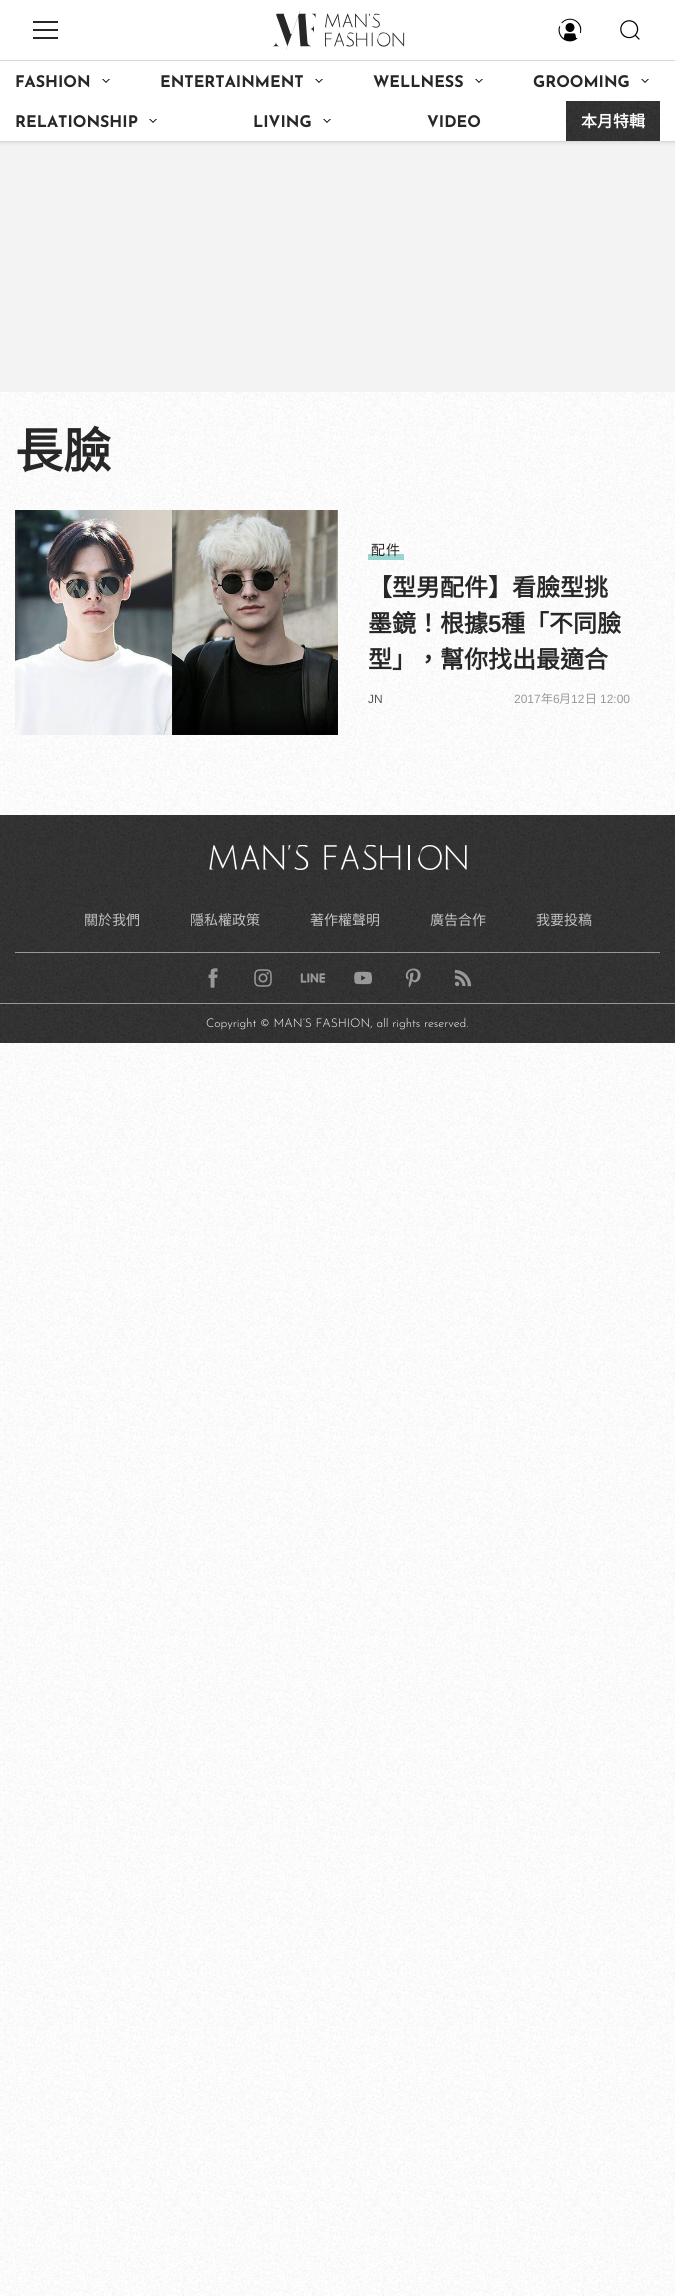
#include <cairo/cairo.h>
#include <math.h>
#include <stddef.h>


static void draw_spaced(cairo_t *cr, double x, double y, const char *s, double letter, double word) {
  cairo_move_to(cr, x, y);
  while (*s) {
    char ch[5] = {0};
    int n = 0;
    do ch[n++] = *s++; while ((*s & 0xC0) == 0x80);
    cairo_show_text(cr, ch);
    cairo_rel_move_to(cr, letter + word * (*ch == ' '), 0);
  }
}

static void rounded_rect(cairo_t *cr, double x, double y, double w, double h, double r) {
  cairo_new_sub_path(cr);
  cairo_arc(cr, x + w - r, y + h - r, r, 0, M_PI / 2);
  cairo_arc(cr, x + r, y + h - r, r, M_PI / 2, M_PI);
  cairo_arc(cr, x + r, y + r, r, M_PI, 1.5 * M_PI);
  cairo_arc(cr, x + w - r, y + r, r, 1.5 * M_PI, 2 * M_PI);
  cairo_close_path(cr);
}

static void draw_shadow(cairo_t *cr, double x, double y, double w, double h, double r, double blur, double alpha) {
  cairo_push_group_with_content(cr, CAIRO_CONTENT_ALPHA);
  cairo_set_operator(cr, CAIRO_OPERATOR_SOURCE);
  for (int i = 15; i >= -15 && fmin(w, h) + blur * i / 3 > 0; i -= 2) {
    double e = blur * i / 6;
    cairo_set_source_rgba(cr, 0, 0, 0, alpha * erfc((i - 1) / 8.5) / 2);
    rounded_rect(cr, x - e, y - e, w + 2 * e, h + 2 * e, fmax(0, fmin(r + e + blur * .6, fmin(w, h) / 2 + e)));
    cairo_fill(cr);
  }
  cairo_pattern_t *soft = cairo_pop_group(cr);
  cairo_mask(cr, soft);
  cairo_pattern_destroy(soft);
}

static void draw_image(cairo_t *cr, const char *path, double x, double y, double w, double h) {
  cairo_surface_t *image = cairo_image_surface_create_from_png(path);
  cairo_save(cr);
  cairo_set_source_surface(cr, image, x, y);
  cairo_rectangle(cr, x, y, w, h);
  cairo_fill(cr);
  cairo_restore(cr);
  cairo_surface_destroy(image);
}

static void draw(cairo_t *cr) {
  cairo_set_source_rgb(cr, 1, 1, 1);
  cairo_paint(cr);
  draw_image(cr, "images/1.png", 0, 392, 675, 1904);
  cairo_set_source_rgb(cr, 243 / 255.0, 243 / 255.0, 243 / 255.0);
  cairo_rectangle(cr, 0, 142, 675, 250);
  cairo_fill(cr);
  cairo_set_source_rgb(cr, 0, 0, 0);
  draw_shadow(cr, 0, 0, 675, 142, 0, 2.5, 0.15);
  cairo_set_source_rgb(cr, 1, 1, 1);
  cairo_rectangle(cr, 0, 0, 675, 141);
  cairo_fill(cr);
  cairo_set_source_rgb(cr, 39 / 255.0, 39 / 255.0, 39 / 255.0);
  cairo_rectangle(cr, 33, 21, 25, 2);
  cairo_fill(cr);
  cairo_rectangle(cr, 33, 29, 25, 2);
  cairo_fill(cr);
  cairo_rectangle(cr, 33, 37, 25, 2);
  cairo_fill(cr);
  draw_image(cr, "images/2.png", 272, 10, 133, 40);
  draw_image(cr, "images/3.png", 558, 18, 24, 24);
  draw_image(cr, "images/4.png", 620, 20, 20, 20);
  cairo_set_source_rgb(cr, 216 / 255.0, 216 / 255.0, 216 / 255.0);
  cairo_rectangle(cr, 0, 60, 675, 1);
  cairo_fill(cr);
  cairo_rectangle(cr, 0, 141, 675, 1);
  cairo_fill(cr);
  draw_image(cr, "images/5.png", 102, 79, 8, 4);
  draw_image(cr, "images/5.png", 315, 79, 8, 4);
  draw_image(cr, "images/5.png", 475, 79, 8, 4);
  draw_image(cr, "images/5.png", 641, 79, 8, 4);
  draw_image(cr, "images/5.png", 149, 119, 8, 4);
  draw_image(cr, "images/5.png", 323, 119, 8, 4);
  cairo_set_source_rgb(cr, 39 / 255.0, 39 / 255.0, 39 / 255.0);
  cairo_rectangle(cr, 566, 101, 94, 40);
  cairo_fill(cr);
  draw_image(cr, "images/6.png", 566, 101, 94, 40);
  draw_image(cr, "images/7.png", 15, 510, 323, 225);
  cairo_set_source_rgba(cr, 113 / 255.0, 198 / 255.0, 188 / 255.0, 0.7);
  cairo_rectangle(cr, 368, 554, 36, 6);
  cairo_fill(cr);
  cairo_set_source_rgb(cr, 39 / 255.0, 39 / 255.0, 39 / 255.0);
  cairo_rectangle(cr, 0, 815, 675, 228);
  cairo_fill(cr);
  draw_image(cr, "images/8.png", 0, 815, 675, 228);
  draw_image(cr, "images/9.png", 209, 845, 258, 25);
  cairo_set_source_rgb(cr, 153 / 255.0, 153 / 255.0, 153 / 255.0);
  cairo_rectangle(cr, 15, 952, 645, 1);
  cairo_fill(cr);
  draw_image(cr, "images/10.png", 208, 968, 10, 20);
  draw_image(cr, "images/11.png", 254, 969, 18, 18);
  draw_image(cr, "images/12.png", 300, 973, 26, 10);
  draw_image(cr, "images/13.png", 354, 971, 18, 14);
  draw_image(cr, "images/14.png", 405, 968, 16, 20);
  draw_image(cr, "images/15.png", 454, 969, 18, 18);
  cairo_rectangle(cr, 0, 1003, 675, 1);
  cairo_fill(cr);
  cairo_select_font_face(cr, "Josefin Sans", CAIRO_FONT_SLANT_NORMAL, CAIRO_FONT_WEIGHT_BOLD);
  cairo_set_font_size(cr, 16);
  cairo_set_source_rgb(cr, 39 / 255.0, 39 / 255.0, 39 / 255.0);
  cairo_move_to(cr, 15, 87);
  cairo_show_text(cr, "FASHION");
  cairo_move_to(cr, 160, 87);
  cairo_show_text(cr, "ENTERTAINMENT");
  cairo_move_to(cr, 373, 87);
  cairo_show_text(cr, "WELLNESS");
  cairo_move_to(cr, 533, 87);
  cairo_show_text(cr, "GROOMING");
  cairo_move_to(cr, 15, 127);
  cairo_show_text(cr, "RELATIONSHIP");
  cairo_move_to(cr, 253, 127);
  cairo_show_text(cr, "LIVING");
  cairo_move_to(cr, 427, 127);
  cairo_show_text(cr, "VIDEO");
  cairo_select_font_face(cr, "Noto Sans CJK TC", CAIRO_FONT_SLANT_NORMAL, CAIRO_FONT_WEIGHT_BOLD);
  cairo_set_source_rgb(cr, 1, 1, 1);
  cairo_move_to(cr, 581, 127);
  cairo_show_text(cr, "本月特輯");
  cairo_set_font_size(cr, 48);
  cairo_set_source_rgb(cr, 39 / 255.0, 39 / 255.0, 39 / 255.0);
  cairo_move_to(cr, 15, 468);
  cairo_show_text(cr, "長臉");
  cairo_select_font_face(cr, "Noto Sans CJK TC", CAIRO_FONT_SLANT_NORMAL, CAIRO_FONT_WEIGHT_NORMAL);
  cairo_set_font_size(cr, 14);
  draw_spaced(cr, 371, 555, "配件", 1, 0);
  cairo_select_font_face(cr, "Noto Sans CJK TC", CAIRO_FONT_SLANT_NORMAL, CAIRO_FONT_WEIGHT_BOLD);
  cairo_set_font_size(cr, 24);
  cairo_move_to(cr, 368, 596);
  cairo_show_text(cr, "【型男配件】看臉型挑");
  cairo_move_to(cr, 368, 632);
  cairo_show_text(cr, "墨鏡！根據");
  cairo_select_font_face(cr, "Liberation Sans", CAIRO_FONT_SLANT_NORMAL, CAIRO_FONT_WEIGHT_BOLD);
  cairo_move_to(cr, 488, 632);
  cairo_show_text(cr, "5");
  cairo_select_font_face(cr, "Noto Sans CJK TC", CAIRO_FONT_SLANT_NORMAL, CAIRO_FONT_WEIGHT_BOLD);
  cairo_move_to(cr, 501, 632);
  cairo_show_text(cr, "種「不同臉");
  cairo_move_to(cr, 368, 668);
  cairo_show_text(cr, "型」，幫你找出最適合");
  cairo_select_font_face(cr, "Liberation Sans", CAIRO_FONT_SLANT_NORMAL, CAIRO_FONT_WEIGHT_NORMAL);
  cairo_set_font_size(cr, 12);
  cairo_set_source_rgb(cr, 85 / 255.0, 85 / 255.0, 85 / 255.0);
  cairo_move_to(cr, 368, 703);
  cairo_show_text(cr, "JN");
  cairo_set_source_rgb(cr, 153 / 255.0, 153 / 255.0, 153 / 255.0);
  cairo_move_to(cr, 514, 703);
  cairo_show_text(cr, "2017");
  cairo_select_font_face(cr, "Noto Sans CJK TC", CAIRO_FONT_SLANT_NORMAL, CAIRO_FONT_WEIGHT_NORMAL);
  cairo_move_to(cr, 541, 703);
  cairo_show_text(cr, "年");
  cairo_select_font_face(cr, "Liberation Sans", CAIRO_FONT_SLANT_NORMAL, CAIRO_FONT_WEIGHT_NORMAL);
  cairo_move_to(cr, 553, 703);
  cairo_show_text(cr, "6");
  cairo_select_font_face(cr, "Noto Sans CJK TC", CAIRO_FONT_SLANT_NORMAL, CAIRO_FONT_WEIGHT_NORMAL);
  cairo_move_to(cr, 559, 703);
  cairo_show_text(cr, "月");
  cairo_select_font_face(cr, "Liberation Sans", CAIRO_FONT_SLANT_NORMAL, CAIRO_FONT_WEIGHT_NORMAL);
  cairo_move_to(cr, 571, 703);
  cairo_show_text(cr, "12");
  cairo_select_font_face(cr, "Noto Sans CJK TC", CAIRO_FONT_SLANT_NORMAL, CAIRO_FONT_WEIGHT_NORMAL);
  cairo_move_to(cr, 585, 703);
  cairo_show_text(cr, "日");
  cairo_select_font_face(cr, "Liberation Sans", CAIRO_FONT_SLANT_NORMAL, CAIRO_FONT_WEIGHT_NORMAL);
  cairo_move_to(cr, 600, 703);
  cairo_show_text(cr, "12:00");
  cairo_select_font_face(cr, "Noto Sans CJK TC", CAIRO_FONT_SLANT_NORMAL, CAIRO_FONT_WEIGHT_NORMAL);
  cairo_set_font_size(cr, 14);
  cairo_set_source_rgb(cr, 194 / 255.0, 194 / 255.0, 194 / 255.0);
  cairo_move_to(cr, 84, 925);
  cairo_show_text(cr, "關於我們");
  cairo_move_to(cr, 190, 925);
  cairo_show_text(cr, "隱私權政策");
  cairo_move_to(cr, 310, 925);
  cairo_show_text(cr, "著作權聲明");
  cairo_move_to(cr, 430, 925);
  cairo_show_text(cr, "廣告合作");
  cairo_move_to(cr, 536, 925);
  cairo_show_text(cr, "我要投稿");
  cairo_select_font_face(cr, "Josefin Sans Light", CAIRO_FONT_SLANT_NORMAL, CAIRO_FONT_WEIGHT_NORMAL);
  cairo_set_font_size(cr, 12);
  cairo_set_source_rgb(cr, 1, 1, 1);
  cairo_move_to(cr, 206, 1027);
  cairo_show_text(cr, "Copyright © MAN’S FASHION, all rights reserved.");
}

int main(void) {
  cairo_surface_t *surface = cairo_image_surface_create(CAIRO_FORMAT_RGB24, 675, 2296);
  cairo_t *cr = cairo_create(surface);
  cairo_font_options_t *options = cairo_font_options_create();
  cairo_font_options_set_hint_metrics(options, CAIRO_HINT_METRICS_OFF);
  cairo_font_options_set_hint_style(options, CAIRO_HINT_STYLE_NONE);
  cairo_set_font_options(cr, options);
  cairo_set_miter_limit(cr, 4);
  draw(cr);
  cairo_surface_write_to_png(surface, "out.png");
  cairo_font_options_destroy(options);
  cairo_destroy(cr);
  cairo_surface_destroy(surface);
  return 0;
}
